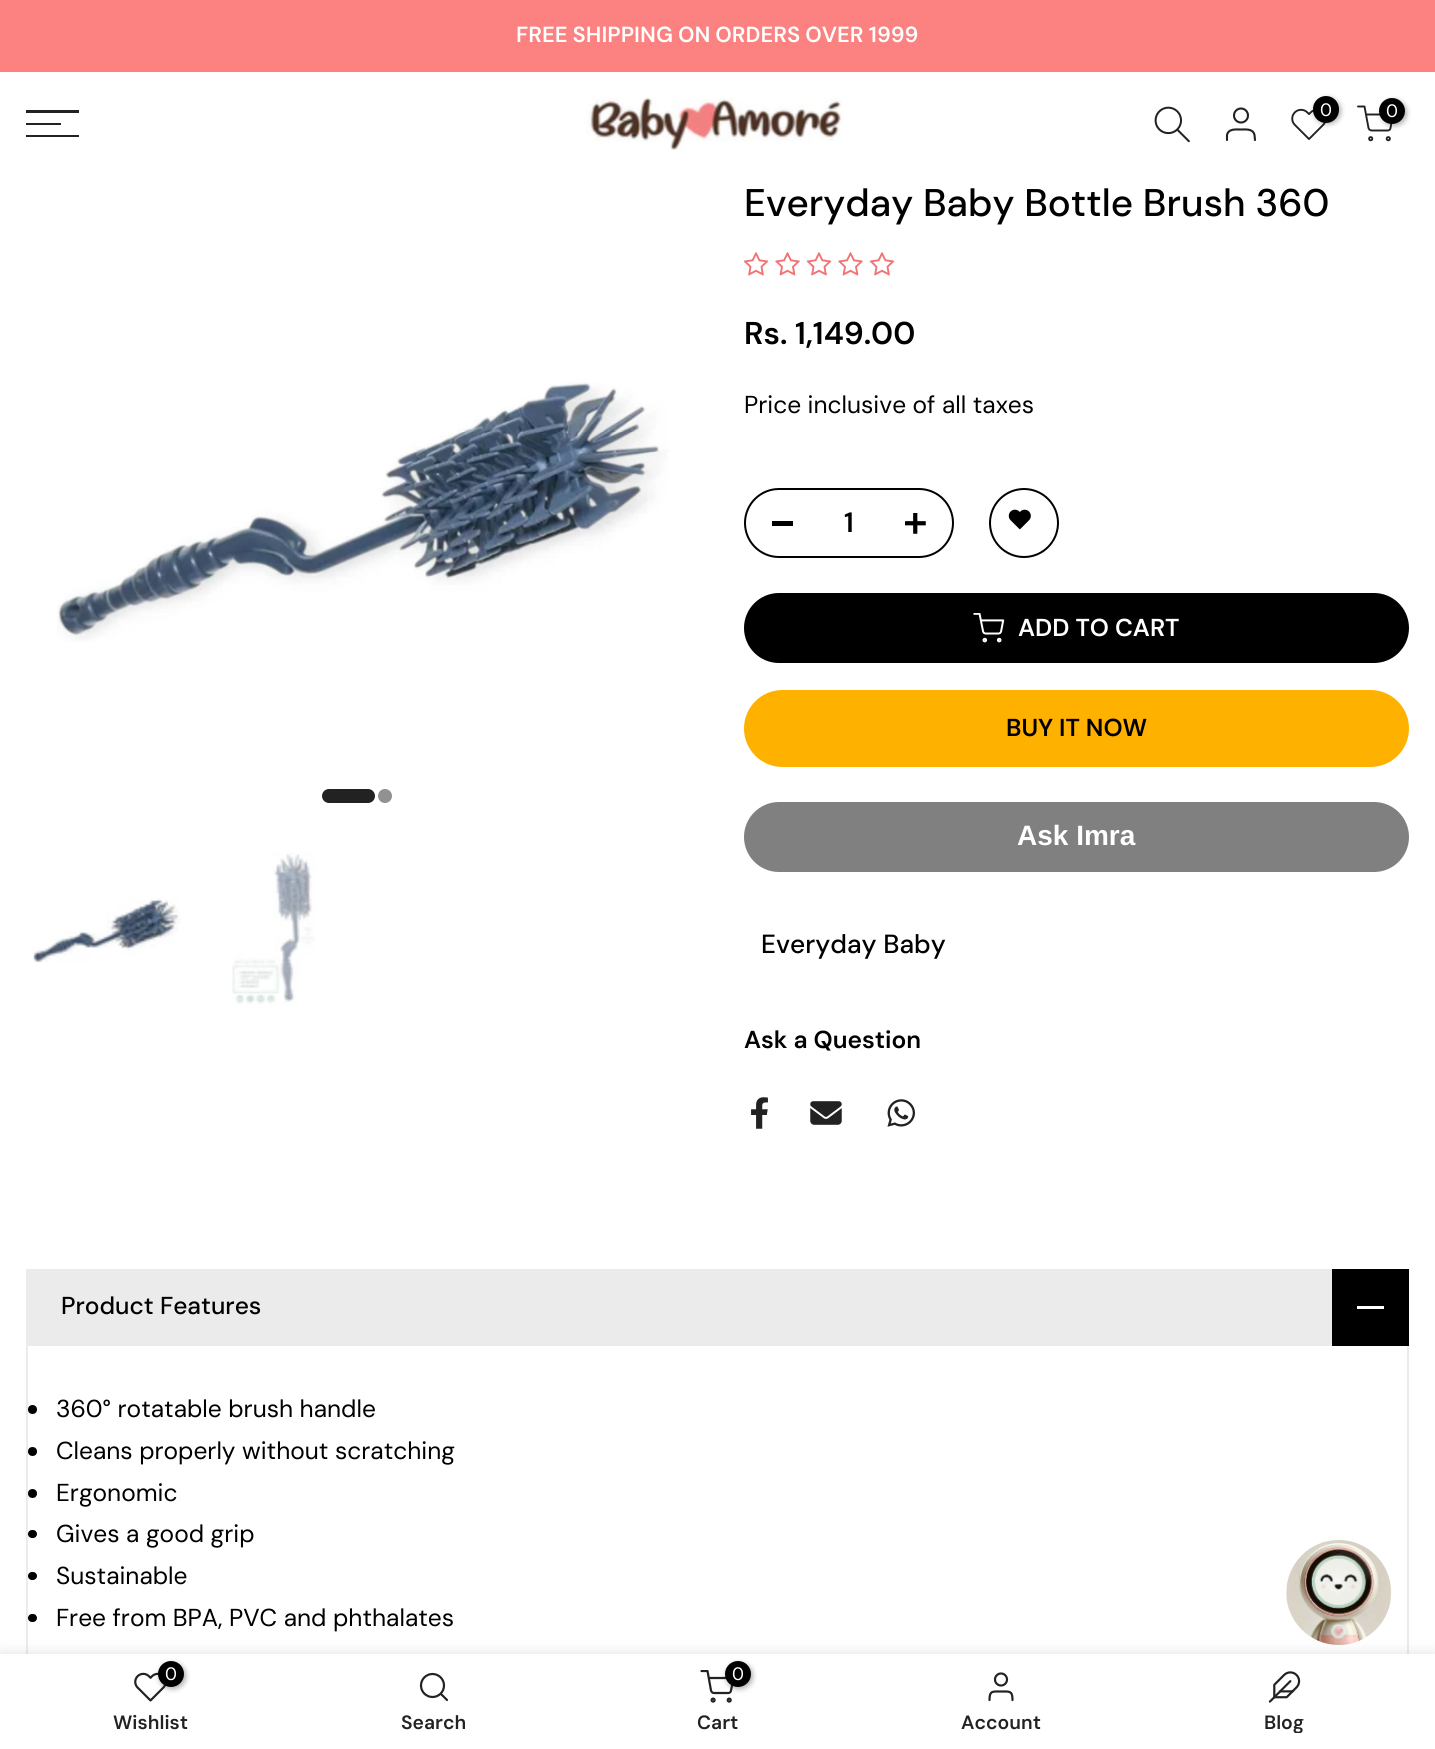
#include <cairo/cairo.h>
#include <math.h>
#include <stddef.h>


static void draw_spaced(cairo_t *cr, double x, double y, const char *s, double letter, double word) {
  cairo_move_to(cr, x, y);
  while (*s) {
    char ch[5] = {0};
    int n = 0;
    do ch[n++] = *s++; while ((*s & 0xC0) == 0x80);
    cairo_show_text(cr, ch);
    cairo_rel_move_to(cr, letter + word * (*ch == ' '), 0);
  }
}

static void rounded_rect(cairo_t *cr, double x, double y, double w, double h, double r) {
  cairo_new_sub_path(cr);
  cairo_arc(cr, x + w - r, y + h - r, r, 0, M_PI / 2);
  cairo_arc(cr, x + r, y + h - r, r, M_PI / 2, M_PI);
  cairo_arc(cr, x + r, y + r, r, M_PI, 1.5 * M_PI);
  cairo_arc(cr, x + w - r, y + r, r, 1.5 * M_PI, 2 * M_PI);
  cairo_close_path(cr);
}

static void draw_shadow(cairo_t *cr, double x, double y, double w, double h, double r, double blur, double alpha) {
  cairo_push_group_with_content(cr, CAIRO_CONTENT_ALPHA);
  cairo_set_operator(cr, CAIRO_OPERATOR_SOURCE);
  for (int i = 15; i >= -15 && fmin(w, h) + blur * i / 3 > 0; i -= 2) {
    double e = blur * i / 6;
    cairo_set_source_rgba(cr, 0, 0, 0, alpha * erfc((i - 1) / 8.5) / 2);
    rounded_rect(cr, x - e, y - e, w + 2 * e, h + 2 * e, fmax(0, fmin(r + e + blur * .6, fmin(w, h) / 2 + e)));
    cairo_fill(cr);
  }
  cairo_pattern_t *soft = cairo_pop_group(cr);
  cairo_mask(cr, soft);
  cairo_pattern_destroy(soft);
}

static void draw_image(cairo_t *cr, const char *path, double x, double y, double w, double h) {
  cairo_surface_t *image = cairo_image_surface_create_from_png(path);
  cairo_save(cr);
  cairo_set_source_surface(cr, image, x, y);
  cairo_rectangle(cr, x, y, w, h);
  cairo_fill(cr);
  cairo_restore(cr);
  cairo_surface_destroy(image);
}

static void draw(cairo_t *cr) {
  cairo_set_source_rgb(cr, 1, 1, 1);
  cairo_paint(cr);
  cairo_set_source_rgb(cr, 252 / 255.0, 129 / 255.0, 129 / 255.0);
  cairo_rectangle(cr, 0, 0, 1435, 72);
  cairo_fill(cr);
  cairo_set_source_rgb(cr, 34 / 255.0, 34 / 255.0, 34 / 255.0);
  cairo_rectangle(cr, 26, 110, 53, 3);
  cairo_fill(cr);
  cairo_rectangle(cr, 26, 123, 35, 2);
  cairo_fill(cr);
  cairo_rectangle(cr, 26, 135, 53, 2);
  cairo_fill(cr);
  draw_image(cr, "images/1.png", 586, 97, 258, 54);
  draw_image(cr, "images/2.png", 1154, 106, 36, 37);
  cairo_arc(cr, 1241, 115.5, 7, 0, 2 * M_PI);
  cairo_set_line_width(cr, 2.1);
  cairo_stroke(cr);
  cairo_new_path(cr);
  cairo_move_to(cr, 1255, 140);
  cairo_line_to(cr, 1254.5, 135);
  cairo_curve_to(cr, 1253, 128.5, 1246, 129.5, 1241, 129.5);
  cairo_curve_to(cr, 1235.5, 129.5, 1228.5, 128.5, 1227, 135);
  cairo_line_to(cr, 1227, 140);
  cairo_set_line_cap(cr, CAIRO_LINE_CAP_ROUND);
  cairo_set_line_join(cr, CAIRO_LINE_JOIN_ROUND);
  cairo_stroke(cr);
  draw_image(cr, "images/3.png", 1291, 108, 35, 32);
  cairo_set_source_rgb(cr, 0, 0, 0);
  draw_shadow(cr, 1314, 98, 27, 26, 13, 2.5, 0.3);
  cairo_set_source_rgb(cr, 0, 0, 0);
  rounded_rect(cr, 1313, 96, 26, 27, 13);
  cairo_fill(cr);
  cairo_new_path(cr);
  cairo_move_to(cr, 1358, 106.5);
  cairo_line_to(cr, 1364.5, 106.5);
  cairo_line_to(cr, 1368.5, 128);
  cairo_curve_to(cr, 1369, 129.5, 1370, 130.5, 1372, 130.5);
  cairo_line_to(cr, 1387.5, 130.5);
  cairo_curve_to(cr, 1389, 130.5, 1390.5, 129.5, 1390.5, 128);
  cairo_line_to(cr, 1393, 114.5);
  cairo_line_to(cr, 1366, 114.5);
  cairo_set_source_rgb(cr, 34 / 255.0, 34 / 255.0, 34 / 255.0);
  cairo_set_line_width(cr, 1.9);
  cairo_stroke(cr);
  cairo_set_source_rgb(cr, 0, 0, 0);
  draw_shadow(cr, 1381, 100, 26, 26, 13, 2.5, 0.3);
  cairo_set_source_rgb(cr, 0, 0, 0);
  cairo_arc(cr, 1392, 111, 13, 0, 2 * M_PI);
  cairo_fill(cr);
  cairo_arc(cr, 1370.7, 138.7, 1.6, 0, 2 * M_PI);
  cairo_set_source_rgb(cr, 34 / 255.0, 34 / 255.0, 34 / 255.0);
  cairo_set_line_cap(cr, CAIRO_LINE_CAP_BUTT);
  cairo_set_line_join(cr, CAIRO_LINE_JOIN_MITER);
  cairo_stroke(cr);
  cairo_arc(cr, 1388.3, 138.7, 1.6, 0, 2 * M_PI);
  cairo_stroke(cr);
  draw_image(cr, "images/4.png", 57, 382, 612, 260);
  rounded_rect(cr, 322, 789, 53, 14, 7);
  cairo_fill(cr);
  cairo_set_source_rgb(cr, 145 / 255.0, 145 / 255.0, 145 / 255.0);
  cairo_arc(cr, 385, 796, 7, 0, 2 * M_PI);
  cairo_fill(cr);
  draw_image(cr, "images/5.png", 32, 898, 149, 65);
  draw_image(cr, "images/6.png", 231, 851, 84, 155);
  draw_image(cr, "images/7.png", 743, 252, 26, 24);
  draw_image(cr, "images/8.png", 775, 252, 25, 24);
  draw_image(cr, "images/7.png", 806, 252, 26, 24);
  draw_image(cr, "images/8.png", 838, 252, 25, 24);
  draw_image(cr, "images/7.png", 869, 252, 26, 24);
  rounded_rect(cr, 745, 489, 208, 68, 34);
  cairo_set_source_rgb(cr, 0, 0, 0);
  cairo_set_line_width(cr, 2);
  cairo_stroke(cr);
  cairo_rectangle(cr, 772, 521, 21, 5);
  cairo_fill(cr);
  draw_image(cr, "images/9.png", 905, 513, 21, 21);
  cairo_arc(cr, 1024, 523, 34, 0, 2 * M_PI);
  cairo_stroke(cr);
  draw_image(cr, "images/10.png", 1008, 509, 23, 21);
  rounded_rect(cr, 744, 593, 665, 70, 35);
  cairo_fill(cr);
  draw_image(cr, "images/11.png", 973, 613, 32, 30);
  cairo_set_source_rgb(cr, 1, 177 / 255.0, 0);
  rounded_rect(cr, 744, 690, 665, 77, 38.5);
  cairo_fill(cr);
  cairo_set_source_rgb(cr, 128 / 255.0, 128 / 255.0, 128 / 255.0);
  rounded_rect(cr, 744, 802, 665, 70, 35);
  cairo_fill(cr);
  draw_image(cr, "images/12.png", 751, 1097, 17, 32);
  draw_image(cr, "images/13.png", 810, 1101, 32, 24);
  draw_image(cr, "images/14.png", 887, 1099, 28, 28);
  cairo_set_source_rgb(cr, 235 / 255.0, 235 / 255.0, 235 / 255.0);
  cairo_rectangle(cr, 26, 1269, 1306, 77);
  cairo_fill(cr);
  cairo_set_source_rgb(cr, 0, 0, 0);
  cairo_rectangle(cr, 1332, 1269, 77, 77);
  cairo_fill(cr);
  cairo_set_source_rgb(cr, 1, 1, 1);
  cairo_rectangle(cr, 1357, 1306, 27, 3);
  cairo_fill(cr);
  cairo_set_source_rgb(cr, 235 / 255.0, 235 / 255.0, 235 / 255.0);
  cairo_new_path(cr);
  cairo_move_to(cr, 1409, 1346);
  cairo_line_to(cr, 1409, 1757);
  cairo_line_to(cr, 1407, 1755);
  cairo_line_to(cr, 1407, 1346);
  cairo_close_path(cr);
  cairo_fill(cr);
  cairo_new_path(cr);
  cairo_move_to(cr, 26, 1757);
  cairo_line_to(cr, 26, 1346);
  cairo_line_to(cr, 28, 1346);
  cairo_line_to(cr, 28, 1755);
  cairo_close_path(cr);
  cairo_fill(cr);
  cairo_set_source_rgb(cr, 0, 0, 0);
  cairo_arc(cr, 32.5, 1409.5, 4.5, 0, 2 * M_PI);
  cairo_fill(cr);
  cairo_arc(cr, 32.5, 1451.5, 4.5, 0, 2 * M_PI);
  cairo_fill(cr);
  cairo_arc(cr, 32.5, 1493.5, 4.5, 0, 2 * M_PI);
  cairo_fill(cr);
  rounded_rect(cr, 28, 1530, 9, 8, 4);
  cairo_fill(cr);
  rounded_rect(cr, 28, 1572, 9, 8, 4);
  cairo_fill(cr);
  rounded_rect(cr, 28, 1614, 9, 8, 4);
  cairo_fill(cr);
  cairo_set_source_rgb(cr, 0, 0, 0);
  draw_shadow(cr, 0, 1654, 1435, 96, 0, 8, 0.12);
  draw_image(cr, "images/15.png", 1286, 1540, 106, 105);
  cairo_set_source_rgb(cr, 1, 1, 1);
  cairo_rectangle(cr, 0, 1654, 1435, 95);
  cairo_fill(cr);
  draw_image(cr, "images/16.png", 134, 1672, 32, 30);
  cairo_set_source_rgb(cr, 0, 0, 0);
  draw_shadow(cr, 159, 1663, 27, 26, 13, 2.5, 0.3);
  cairo_set_source_rgb(cr, 0, 0, 0);
  cairo_arc(cr, 171, 1674, 13, 0, 2 * M_PI);
  cairo_fill(cr);
  cairo_arc(cr, 432.5, 1685.5, 11.5, 0, 2 * M_PI);
  cairo_set_source_rgb(cr, 34 / 255.0, 34 / 255.0, 34 / 255.0);
  cairo_set_line_width(cr, 2.2);
  cairo_stroke(cr);
  cairo_new_path(cr);
  cairo_move_to(cr, 447, 1700);
  cairo_line_to(cr, 441, 1694);
  cairo_set_line_cap(cr, CAIRO_LINE_CAP_ROUND);
  cairo_set_line_join(cr, CAIRO_LINE_JOIN_ROUND);
  cairo_stroke(cr);
  cairo_save(cr);
  cairo_rectangle(cr, 700, 1670, 35, 35);
  cairo_clip(cr);
  cairo_new_path(cr);
  cairo_move_to(cr, 701.5, 1671);
  cairo_line_to(cr, 707.5, 1671);
  cairo_line_to(cr, 711, 1690.5);
  cairo_curve_to(cr, 711.5, 1692, 712.5, 1693, 714, 1693);
  cairo_line_to(cr, 728.5, 1693);
  cairo_curve_to(cr, 729.5, 1693, 731, 1692, 731, 1690.5);
  cairo_line_to(cr, 733.5, 1678);
  cairo_line_to(cr, 709, 1678);
  cairo_stroke(cr);
  cairo_restore(cr);
  cairo_arc(cr, 729.2, 1700.1, 1.5, 0, 2 * M_PI);
  cairo_set_line_cap(cr, CAIRO_LINE_CAP_BUTT);
  cairo_set_line_join(cr, CAIRO_LINE_JOIN_MITER);
  cairo_stroke(cr);
  cairo_set_source_rgb(cr, 0, 0, 0);
  draw_shadow(cr, 726, 1663, 27, 26, 13, 2.5, 0.3);
  cairo_set_source_rgb(cr, 0, 0, 0);
  cairo_arc(cr, 738, 1674, 13, 0, 2 * M_PI);
  cairo_fill(cr);
  cairo_arc(cr, 713.1, 1700.1, 1.5, 0, 2 * M_PI);
  cairo_set_source_rgb(cr, 34 / 255.0, 34 / 255.0, 34 / 255.0);
  cairo_stroke(cr);
  cairo_arc(cr, 1001, 1679.5, 6, 0, 2 * M_PI);
  cairo_stroke(cr);
  cairo_new_path(cr);
  cairo_move_to(cr, 1012.5, 1700);
  cairo_curve_to(cr, 1012.5, 1690.5, 1009.5, 1691.5, 1001, 1691.5);
  cairo_curve_to(cr, 992.5, 1691.5, 989.5, 1690.5, 989.5, 1700);
  cairo_set_line_cap(cr, CAIRO_LINE_CAP_ROUND);
  cairo_set_line_join(cr, CAIRO_LINE_JOIN_ROUND);
  cairo_stroke(cr);
  draw_image(cr, "images/17.png", 1268, 1671, 33, 32);
  cairo_select_font_face(cr, "DM Sans SemiBold", CAIRO_FONT_SLANT_NORMAL, CAIRO_FONT_WEIGHT_NORMAL);
  cairo_set_font_size(cr, 21.9);
  cairo_set_source_rgb(cr, 1, 1, 1);
  draw_spaced(cr, 516, 42, "FREE SHIPPING ON ORDERS OVER 1999", 0, -0.5);
  cairo_select_font_face(cr, "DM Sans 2", CAIRO_FONT_SLANT_NORMAL, CAIRO_FONT_WEIGHT_NORMAL);
  cairo_set_font_size(cr, 18);
  cairo_move_to(cr, 1320, 116);
  cairo_show_text(cr, "0");
  cairo_move_to(cr, 1386, 117);
  cairo_show_text(cr, "0");
  cairo_select_font_face(cr, "DM Sans 2 Medium", CAIRO_FONT_SLANT_NORMAL, CAIRO_FONT_WEIGHT_NORMAL);
  cairo_set_font_size(cr, 38.5);
  cairo_set_source_rgb(cr, 0, 0, 0);
  cairo_move_to(cr, 744, 216);
  cairo_show_text(cr, "Everyday Baby Bottle Brush 360");
  cairo_select_font_face(cr, "DM Sans 2 SemiBold", CAIRO_FONT_SLANT_NORMAL, CAIRO_FONT_WEIGHT_NORMAL);
  cairo_set_font_size(cr, 31.5);
  cairo_move_to(cr, 744, 344);
  cairo_show_text(cr, "Rs. 1,149.00");
  cairo_select_font_face(cr, "DM Sans", CAIRO_FONT_SLANT_NORMAL, CAIRO_FONT_WEIGHT_NORMAL);
  cairo_set_font_size(cr, 24.5);
  cairo_move_to(cr, 744, 413);
  cairo_show_text(cr, "Price inclusive of all taxes");
  cairo_select_font_face(cr, "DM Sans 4 SemiBold", CAIRO_FONT_SLANT_NORMAL, CAIRO_FONT_WEIGHT_NORMAL);
  cairo_set_font_size(cr, 28);
  cairo_move_to(cr, 844, 532);
  cairo_show_text(cr, "1");
  cairo_select_font_face(cr, "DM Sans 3 SemiBold", CAIRO_FONT_SLANT_NORMAL, CAIRO_FONT_WEIGHT_NORMAL);
  cairo_set_font_size(cr, 24.5);
  cairo_set_source_rgb(cr, 1, 1, 1);
  cairo_move_to(cr, 1018, 636);
  cairo_show_text(cr, "ADD TO CART");
  cairo_set_source_rgb(cr, 0, 0, 0);
  cairo_move_to(cr, 1006, 736);
  cairo_show_text(cr, "BUY IT NOW");
  cairo_select_font_face(cr, "Liberation Sans", CAIRO_FONT_SLANT_NORMAL, CAIRO_FONT_WEIGHT_BOLD);
  cairo_set_font_size(cr, 28);
  cairo_set_source_rgb(cr, 1, 1, 1);
  cairo_move_to(cr, 1017, 845);
  cairo_show_text(cr, "Ask Imra");
  cairo_select_font_face(cr, "DM Sans 3 Medium", CAIRO_FONT_SLANT_NORMAL, CAIRO_FONT_WEIGHT_NORMAL);
  cairo_set_font_size(cr, 26.25);
  cairo_set_source_rgb(cr, 0, 0, 0);
  cairo_move_to(cr, 761, 953);
  cairo_show_text(cr, "Everyday Baby");
  cairo_select_font_face(cr, "DM Sans 3 SemiBold", CAIRO_FONT_SLANT_NORMAL, CAIRO_FONT_WEIGHT_NORMAL);
  cairo_set_font_size(cr, 24.5);
  cairo_move_to(cr, 744, 1048);
  cairo_show_text(cr, "Ask a Question");
  cairo_select_font_face(cr, "DM Sans Medium", CAIRO_FONT_SLANT_NORMAL, CAIRO_FONT_WEIGHT_NORMAL);
  cairo_move_to(cr, 61, 1314);
  cairo_show_text(cr, "Product Features");
  cairo_select_font_face(cr, "DM Sans", CAIRO_FONT_SLANT_NORMAL, CAIRO_FONT_WEIGHT_NORMAL);
  cairo_move_to(cr, 56, 1417);
  cairo_show_text(cr, "360° rotatable brush handle");
  cairo_move_to(cr, 56, 1459);
  cairo_show_text(cr, "Cleans properly without scratching");
  cairo_move_to(cr, 56, 1501);
  cairo_show_text(cr, "Ergonomic");
  cairo_move_to(cr, 56, 1542);
  cairo_show_text(cr, "Gives a good grip");
  cairo_move_to(cr, 56, 1584);
  cairo_show_text(cr, "Sustainable");
  cairo_move_to(cr, 56, 1626);
  cairo_show_text(cr, "Free from BPA, PVC and phthalates");
  cairo_select_font_face(cr, "DM Sans 2", CAIRO_FONT_SLANT_NORMAL, CAIRO_FONT_WEIGHT_NORMAL);
  cairo_set_font_size(cr, 18);
  cairo_set_source_rgb(cr, 1, 1, 1);
  cairo_move_to(cr, 165, 1680);
  cairo_show_text(cr, "0");
  cairo_select_font_face(cr, "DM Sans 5 SemiBold", CAIRO_FONT_SLANT_NORMAL, CAIRO_FONT_WEIGHT_NORMAL);
  cairo_set_font_size(cr, 19.25);
  cairo_set_source_rgb(cr, 34 / 255.0, 34 / 255.0, 34 / 255.0);
  cairo_move_to(cr, 113, 1729);
  cairo_show_text(cr, "Wishlist");
  cairo_move_to(cr, 401, 1729);
  cairo_show_text(cr, "Search");
  cairo_select_font_face(cr, "DM Sans 2", CAIRO_FONT_SLANT_NORMAL, CAIRO_FONT_WEIGHT_NORMAL);
  cairo_set_font_size(cr, 18);
  cairo_set_source_rgb(cr, 1, 1, 1);
  cairo_move_to(cr, 732, 1680);
  cairo_show_text(cr, "0");
  cairo_select_font_face(cr, "DM Sans 5 SemiBold", CAIRO_FONT_SLANT_NORMAL, CAIRO_FONT_WEIGHT_NORMAL);
  cairo_set_font_size(cr, 19.25);
  cairo_set_source_rgb(cr, 34 / 255.0, 34 / 255.0, 34 / 255.0);
  cairo_move_to(cr, 697, 1729);
  cairo_show_text(cr, "Cart");
  cairo_move_to(cr, 961, 1729);
  cairo_show_text(cr, "Account");
  cairo_save(cr);
  cairo_rectangle(cr, 1160, 1713, 249, 20);
  cairo_clip(cr);
  cairo_move_to(cr, 1264, 1729);
  cairo_show_text(cr, "Blog");
  cairo_restore(cr);
}

int main(void) {
  cairo_surface_t *surface = cairo_image_surface_create(CAIRO_FORMAT_RGB24, 1435, 1749);
  cairo_t *cr = cairo_create(surface);
  cairo_font_options_t *options = cairo_font_options_create();
  cairo_font_options_set_hint_metrics(options, CAIRO_HINT_METRICS_OFF);
  cairo_font_options_set_hint_style(options, CAIRO_HINT_STYLE_NONE);
  cairo_set_font_options(cr, options);
  cairo_set_miter_limit(cr, 4);
  draw(cr);
  cairo_surface_write_to_png(surface, "out.png");
  cairo_font_options_destroy(options);
  cairo_destroy(cr);
  cairo_surface_destroy(surface);
  return 0;
}
